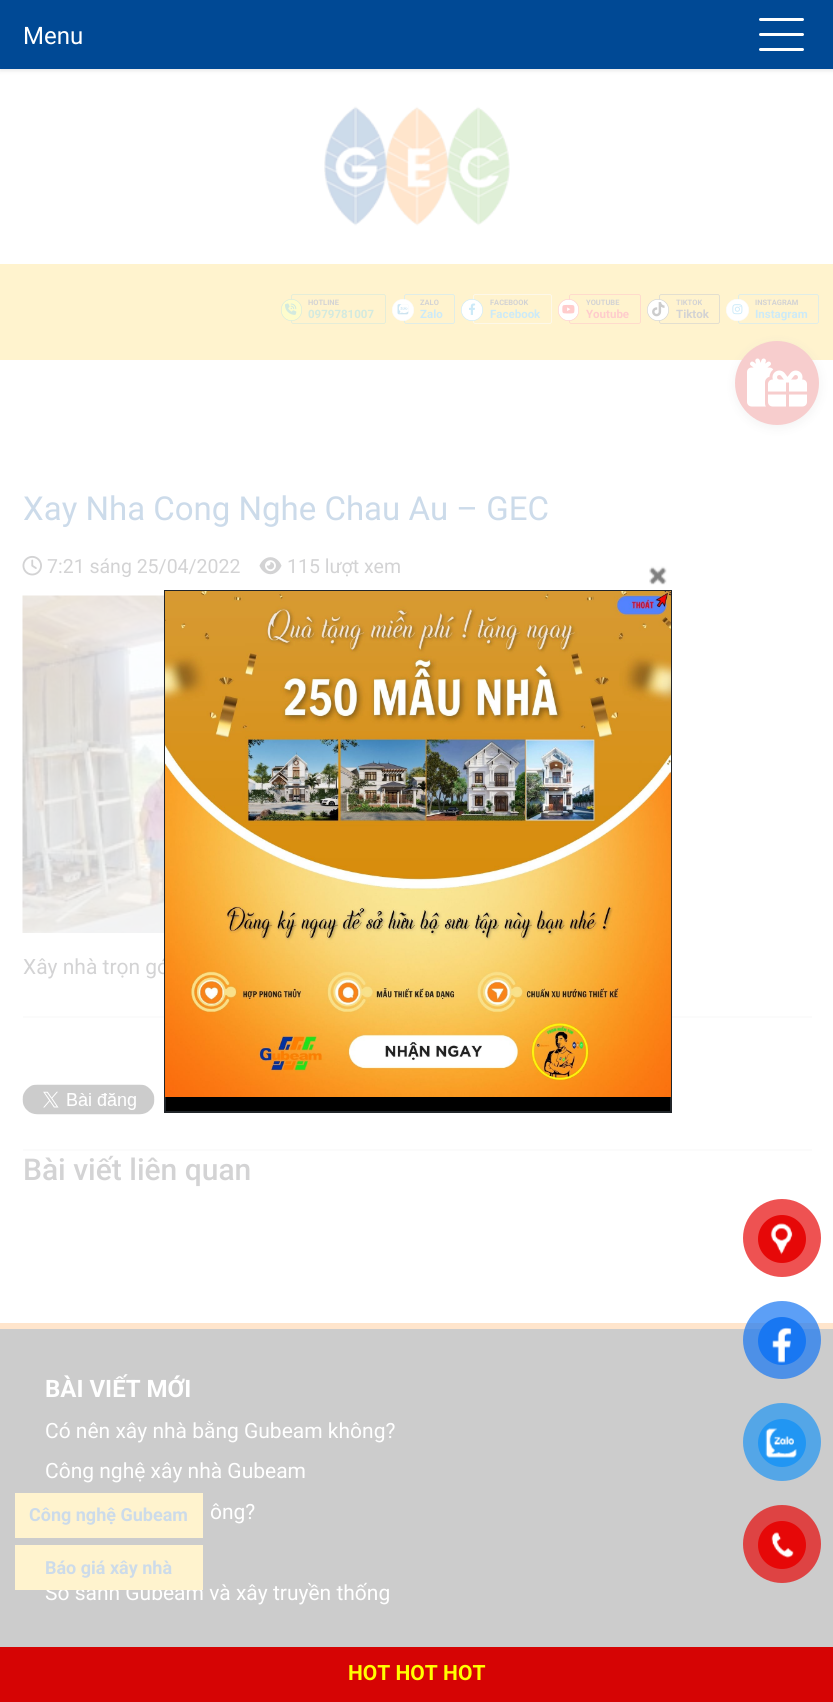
#include <cairo/cairo.h>
#include <math.h>
#include <stddef.h>


static void rounded_rect(cairo_t *cr, double x, double y, double w, double h, double r) {
  cairo_new_sub_path(cr);
  cairo_arc(cr, x + w - r, y + h - r, r, 0, M_PI / 2);
  cairo_arc(cr, x + r, y + h - r, r, M_PI / 2, M_PI);
  cairo_arc(cr, x + r, y + r, r, M_PI, 1.5 * M_PI);
  cairo_arc(cr, x + w - r, y + r, r, 1.5 * M_PI, 2 * M_PI);
  cairo_close_path(cr);
}

static void draw_shadow(cairo_t *cr, double x, double y, double w, double h, double r, double blur, double alpha) {
  cairo_push_group_with_content(cr, CAIRO_CONTENT_ALPHA);
  cairo_set_operator(cr, CAIRO_OPERATOR_SOURCE);
  for (int i = 15; i >= -15 && fmin(w, h) + blur * i / 3 > 0; i -= 2) {
    double e = blur * i / 6;
    cairo_set_source_rgba(cr, 0, 0, 0, alpha * erfc((i - 1) / 8.5) / 2);
    rounded_rect(cr, x - e, y - e, w + 2 * e, h + 2 * e, fmax(0, fmin(r + e + blur * .6, fmin(w, h) / 2 + e)));
    cairo_fill(cr);
  }
  cairo_pattern_t *soft = cairo_pop_group(cr);
  cairo_mask(cr, soft);
  cairo_pattern_destroy(soft);
}

static void draw_image(cairo_t *cr, const char *path, double x, double y, double w, double h) {
  cairo_surface_t *image = cairo_image_surface_create_from_png(path);
  cairo_save(cr);
  cairo_set_source_surface(cr, image, x, y);
  cairo_rectangle(cr, x, y, w, h);
  cairo_fill(cr);
  cairo_restore(cr);
  cairo_surface_destroy(image);
}

static void draw(cairo_t *cr) {
  cairo_set_source_rgb(cr, 1, 1, 1);
  cairo_paint(cr);
  cairo_set_source_rgb(cr, 0, 0, 0);
  draw_shadow(cr, 0, 2, 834, 69, 0, 2, 0.09);
  cairo_set_source_rgb(cr, 0, 73 / 255.0, 149 / 255.0);
  cairo_rectangle(cr, 0, 0, 833, 69);
  cairo_fill(cr);
  cairo_set_source_rgb(cr, 1, 1, 1);
  rounded_rect(cr, 759, 48, 45, 3, 1.5);
  cairo_fill(cr);
  rounded_rect(cr, 759, 18, 45, 3, 1.5);
  cairo_fill(cr);
  rounded_rect(cr, 759, 33, 45, 3, 1.5);
  cairo_fill(cr);
  draw_image(cr, "images/1.png", 324, 106, 186, 120);
  cairo_set_source_rgb(cr, 1, 243 / 255.0, 206 / 255.0);
  cairo_rectangle(cr, 0, 264, 833, 96);
  cairo_fill(cr);
  rounded_rect(cr, 291.3, 294.3, 94.4, 29.4, 2.7);
  cairo_set_source_rgb(cr, 211 / 255.0, 234 / 255.0, 223 / 255.0);
  cairo_set_line_width(cr, 0.6);
  cairo_stroke(cr);
  cairo_set_source_rgb(cr, 254 / 255.0, 252 / 255.0, 204 / 255.0);
  rounded_rect(cr, 281.3, 299.3, 20.4, 21.4, 10.2);
  cairo_fill_preserve(cr);
  cairo_set_source_rgb(cr, 211 / 255.0, 234 / 255.0, 223 / 255.0);
  cairo_stroke(cr);
  draw_image(cr, "images/2.png", 284, 303, 13, 12);
  rounded_rect(cr, 404.3, 294.3, 50.4, 29.4, 2.7);
  cairo_set_source_rgb(cr, 204 / 255.0, 234 / 255.0, 248 / 255.0);
  cairo_stroke(cr);
  cairo_set_source_rgb(cr, 1, 1, 1);
  cairo_arc(cr, 403, 310, 10.7, 0, 2 * M_PI);
  cairo_fill_preserve(cr);
  cairo_set_source_rgb(cr, 251 / 255.0, 251 / 255.0, 251 / 255.0);
  cairo_stroke(cr);
  draw_image(cr, "images/3.png", 397, 304, 12, 11);
  rounded_rect(cr, 473.3, 294.3, 78.4, 29.4, 2.7);
  cairo_stroke(cr);
  cairo_set_source_rgb(cr, 1, 1, 1);
  cairo_arc(cr, 472, 310, 10.7, 0, 2 * M_PI);
  cairo_fill_preserve(cr);
  cairo_set_source_rgb(cr, 204 / 255.0, 234 / 255.0, 248 / 255.0);
  cairo_stroke(cr);
  draw_image(cr, "images/4.png", 469, 303, 7, 12);
  rounded_rect(cr, 569.3, 294.3, 71.4, 29.4, 2.7);
  cairo_set_source_rgb(cr, 1, 204 / 255.0, 204 / 255.0);
  cairo_stroke(cr);
  cairo_set_source_rgb(cr, 1, 1, 1);
  rounded_rect(cr, 558.3, 299.3, 20.4, 21.4, 10.2);
  cairo_fill_preserve(cr);
  cairo_set_source_rgb(cr, 1, 204 / 255.0, 204 / 255.0);
  cairo_stroke(cr);
  draw_image(cr, "images/5.png", 562, 304, 13, 10);
  rounded_rect(cr, 659.3, 294.3, 60.4, 29.4, 2.7);
  cairo_set_source_rgb(cr, 209 / 255.0, 210 / 255.0, 210 / 255.0);
  cairo_stroke(cr);
  cairo_set_source_rgb(cr, 1, 1, 1);
  cairo_arc(cr, 658, 310, 10.7, 0, 2 * M_PI);
  cairo_fill_preserve(cr);
  cairo_set_source_rgb(cr, 209 / 255.0, 210 / 255.0, 210 / 255.0);
  cairo_stroke(cr);
  draw_image(cr, "images/6.png", 652, 302, 13, 15);
  rounded_rect(cr, 738.3, 294.3, 80.4, 29.4, 2.7);
  cairo_set_source_rgb(cr, 204 / 255.0, 234 / 255.0, 248 / 255.0);
  cairo_stroke(cr);
  cairo_set_source_rgb(cr, 1, 1, 1);
  rounded_rect(cr, 726.3, 299.3, 22.4, 21.4, 10.7);
  cairo_fill_preserve(cr);
  cairo_set_source_rgb(cr, 251 / 255.0, 251 / 255.0, 251 / 255.0);
  cairo_stroke(cr);
  draw_image(cr, "images/7.png", 732, 304, 11, 11);
  cairo_set_source_rgb(cr, 204 / 255.0, 204 / 255.0, 204 / 255.0);
  draw_shadow(cr, 734, 342, 87, 87, 43.5, 4.5, 0.2);
  cairo_set_source_rgb(cr, 247 / 255.0, 205 / 255.0, 205 / 255.0);
  cairo_arc(cr, 777, 383, 42, 0, 2 * M_PI);
  cairo_fill(cr);
  draw_image(cr, "images/8.png", 747, 358, 60, 49);
  draw_image(cr, "images/9.png", 22, 555, 20, 21);
  draw_image(cr, "images/10.png", 259, 557, 23, 18);
  draw_image(cr, "images/11.png", 22, 595, 142, 338);
  cairo_set_source_rgb(cr, 251 / 255.0, 251 / 255.0, 251 / 255.0);
  cairo_rectangle(cr, 23, 1016, 789, 2);
  cairo_fill(cr);
  cairo_rectangle(cr, 23, 1149, 789, 2);
  cairo_fill(cr);
  draw_image(cr, "images/12.png", 22, 1084, 133, 31);
  cairo_set_source_rgb(cr, 1, 229 / 255.0, 204 / 255.0);
  cairo_rectangle(cr, 0, 1323, 833, 6);
  cairo_fill(cr);
  cairo_set_source_rgb(cr, 204 / 255.0, 204 / 255.0, 204 / 255.0);
  cairo_rectangle(cr, 0, 1329, 833, 318);
  cairo_fill(cr);
  cairo_set_source_rgb(cr, 1, 243 / 255.0, 206 / 255.0);
  cairo_rectangle(cr, 15, 1493, 188, 45);
  cairo_fill(cr);
  draw_image(cr, "images/13.png", 649, 566, 18, 19);
  cairo_set_source_rgb(cr, 0, 0, 0);
  cairo_rectangle(cr, 166, 1097, 504, 14);
  cairo_fill(cr);
  cairo_set_source_rgb(cr, 238 / 255.0, 82 / 255.0, 82 / 255.0);
  cairo_arc(cr, 782, 1238, 39, 0, 2 * M_PI);
  cairo_fill(cr);
  cairo_set_source_rgb(cr, 230 / 255.0, 8 / 255.0, 8 / 255.0);
  cairo_arc(cr, 782, 1239, 24, 0, 2 * M_PI);
  cairo_fill(cr);
  draw_image(cr, "images/15.png", 770, 1223, 23, 32);
  cairo_set_source_rgba(cr, 24 / 255.0, 119 / 255.0, 242 / 255.0, 0.7);
  cairo_arc(cr, 782, 1340, 39, 0, 2 * M_PI);
  cairo_fill(cr);
  cairo_set_source_rgb(cr, 24 / 255.0, 119 / 255.0, 242 / 255.0);
  cairo_arc(cr, 782, 1341, 24, 0, 2 * M_PI);
  cairo_fill(cr);
  draw_image(cr, "images/16.png", 772, 1327, 20, 36);
  cairo_set_source_rgb(cr, 84 / 255.0, 166 / 255.0, 231 / 255.0);
  cairo_arc(cr, 782, 1442, 39, 0, 2 * M_PI);
  cairo_fill(cr);
  cairo_set_source_rgb(cr, 33 / 255.0, 150 / 255.0, 243 / 255.0);
  cairo_arc(cr, 782, 1443, 24, 0, 2 * M_PI);
  cairo_fill(cr);
  draw_image(cr, "images/17.png", 765, 1428, 32, 30);
  cairo_set_source_rgb(cr, 222 / 255.0, 67 / 255.0, 67 / 255.0);
  cairo_arc(cr, 782, 1544, 39, 0, 2 * M_PI);
  cairo_fill(cr);
  cairo_set_source_rgb(cr, 230 / 255.0, 8 / 255.0, 8 / 255.0);
  cairo_arc(cr, 782, 1545, 24, 0, 2 * M_PI);
  cairo_fill(cr);
  draw_image(cr, "images/18.png", 771, 1532, 23, 26);
  cairo_set_source_rgb(cr, 214 / 255.0, 4 / 255.0, 4 / 255.0);
  cairo_rectangle(cr, 0, 1647, 833, 55);
  cairo_fill(cr);
  cairo_select_font_face(cr, "Roboto", CAIRO_FONT_SLANT_NORMAL, CAIRO_FONT_WEIGHT_NORMAL);
  cairo_set_font_size(cr, 24);
  cairo_set_source_rgb(cr, 1, 1, 1);
  cairo_move_to(cr, 23, 44);
  cairo_show_text(cr, "Menu");
  cairo_select_font_face(cr, "Roboto", CAIRO_FONT_SLANT_NORMAL, CAIRO_FONT_WEIGHT_BOLD);
  cairo_set_font_size(cr, 7.5);
  cairo_set_source_rgb(cr, 211 / 255.0, 211 / 255.0, 212 / 255.0);
  cairo_move_to(cr, 308, 305);
  cairo_show_text(cr, "HOTLINE");
  cairo_set_font_size(cr, 11.5);
  cairo_set_source_rgb(cr, 211 / 255.0, 234 / 255.0, 223 / 255.0);
  cairo_move_to(cr, 308, 318);
  cairo_show_text(cr, "0979781007");
  cairo_set_font_size(cr, 7.5);
  cairo_set_source_rgb(cr, 211 / 255.0, 211 / 255.0, 212 / 255.0);
  cairo_move_to(cr, 420, 305);
  cairo_show_text(cr, "ZALO");
  cairo_set_font_size(cr, 11.5);
  cairo_set_source_rgb(cr, 204 / 255.0, 234 / 255.0, 248 / 255.0);
  cairo_move_to(cr, 420, 318);
  cairo_show_text(cr, "Zalo");
  cairo_set_font_size(cr, 7.5);
  cairo_set_source_rgb(cr, 211 / 255.0, 211 / 255.0, 212 / 255.0);
  cairo_move_to(cr, 490, 305);
  cairo_show_text(cr, "FACEBOOK");
  cairo_set_font_size(cr, 11.5);
  cairo_set_source_rgb(cr, 204 / 255.0, 234 / 255.0, 248 / 255.0);
  cairo_move_to(cr, 490, 318);
  cairo_show_text(cr, "Facebook");
  cairo_set_font_size(cr, 7.5);
  cairo_set_source_rgb(cr, 211 / 255.0, 211 / 255.0, 212 / 255.0);
  cairo_move_to(cr, 586, 305);
  cairo_show_text(cr, "YOUTUBE");
  cairo_set_font_size(cr, 11.5);
  cairo_set_source_rgb(cr, 1, 204 / 255.0, 204 / 255.0);
  cairo_move_to(cr, 586, 318);
  cairo_show_text(cr, "Youtube");
  cairo_set_font_size(cr, 7.5);
  cairo_set_source_rgb(cr, 211 / 255.0, 211 / 255.0, 212 / 255.0);
  cairo_move_to(cr, 676, 305);
  cairo_show_text(cr, "TIKTOK");
  cairo_set_font_size(cr, 11.5);
  cairo_move_to(cr, 676, 318);
  cairo_show_text(cr, "Tiktok");
  cairo_set_font_size(cr, 7.5);
  cairo_move_to(cr, 755, 305);
  cairo_show_text(cr, "INSTAGRAM");
  cairo_set_font_size(cr, 11.5);
  cairo_set_source_rgb(cr, 204 / 255.0, 234 / 255.0, 248 / 255.0);
  cairo_move_to(cr, 755, 318);
  cairo_show_text(cr, "Instagram");
  cairo_select_font_face(cr, "Roboto", CAIRO_FONT_SLANT_NORMAL, CAIRO_FONT_WEIGHT_NORMAL);
  cairo_set_font_size(cr, 33);
  cairo_set_source_rgb(cr, 204 / 255.0, 219 / 255.0, 234 / 255.0);
  cairo_move_to(cr, 23, 520);
  cairo_show_text(cr, "Xay Nha Cong Nghe Chau Au – GEC");
  cairo_set_font_size(cr, 19.5);
  cairo_set_source_rgb(cr, 211 / 255.0, 211 / 255.0, 212 / 255.0);
  cairo_move_to(cr, 47, 573);
  cairo_show_text(cr, "7:21 sáng 25/04/2022");
  cairo_move_to(cr, 287, 573);
  cairo_show_text(cr, "115 lượt xem");
  cairo_set_font_size(cr, 21);
  cairo_move_to(cr, 23, 974);
  cairo_show_text(cr, "Xây nhà trọn gó");
  cairo_select_font_face(cr, "Roboto Medium", CAIRO_FONT_SLANT_NORMAL, CAIRO_FONT_WEIGHT_NORMAL);
  cairo_set_font_size(cr, 30);
  cairo_move_to(cr, 23, 1180);
  cairo_show_text(cr, "Bài viết liên quan");
  cairo_select_font_face(cr, "Roboto", CAIRO_FONT_SLANT_NORMAL, CAIRO_FONT_WEIGHT_BOLD);
  cairo_set_font_size(cr, 24);
  cairo_set_source_rgb(cr, 1, 1, 1);
  cairo_move_to(cr, 45, 1397);
  cairo_show_text(cr, "BÀI VIẾT MỚI");
  cairo_select_font_face(cr, "Roboto", CAIRO_FONT_SLANT_NORMAL, CAIRO_FONT_WEIGHT_NORMAL);
  cairo_set_font_size(cr, 21);
  cairo_move_to(cr, 45, 1438);
  cairo_show_text(cr, "Có nên xây nhà bằng Gubeam không?");
  cairo_move_to(cr, 45, 1478);
  cairo_show_text(cr, "Công nghệ xây nhà Gubeam");
  cairo_move_to(cr, 210, 1519);
  cairo_show_text(cr, "ông?");
  cairo_move_to(cr, 45, 1600);
  cairo_show_text(cr, "So sánh Gubeam và xây truyền thống");
  cairo_select_font_face(cr, "Roboto", CAIRO_FONT_SLANT_NORMAL, CAIRO_FONT_WEIGHT_BOLD);
  cairo_set_font_size(cr, 18);
  cairo_set_source_rgb(cr, 204 / 255.0, 219 / 255.0, 234 / 255.0);
  cairo_move_to(cr, 29, 1521);
  cairo_show_text(cr, "Công nghệ Gubeam");
  cairo_set_source_rgb(cr, 1, 243 / 255.0, 206 / 255.0);
  cairo_rectangle(cr, 15, 1545, 188, 45);
  cairo_fill(cr);
  cairo_set_source_rgb(cr, 204 / 255.0, 219 / 255.0, 234 / 255.0);
  cairo_move_to(cr, 45, 1574);
  cairo_show_text(cr, "Báo giá xây nhà");
  cairo_rectangle(cr, 165, 591, 506, 521);
  cairo_set_source_rgb(cr, 33 / 255.0, 37 / 255.0, 41 / 255.0);
  cairo_set_line_width(cr, 2);
  cairo_stroke(cr);
  draw_image(cr, "images/14.png", 165, 591, 506, 506);
  cairo_set_font_size(cr, 21);
  cairo_set_source_rgb(cr, 1, 1, 0);
  cairo_move_to(cr, 348, 1680);
  cairo_show_text(cr, "HOT HOT HOT");
}

int main(void) {
  cairo_surface_t *surface = cairo_image_surface_create(CAIRO_FORMAT_RGB24, 833, 1702);
  cairo_t *cr = cairo_create(surface);
  cairo_font_options_t *options = cairo_font_options_create();
  cairo_font_options_set_hint_metrics(options, CAIRO_HINT_METRICS_OFF);
  cairo_font_options_set_hint_style(options, CAIRO_HINT_STYLE_NONE);
  cairo_set_font_options(cr, options);
  cairo_set_miter_limit(cr, 4);
  draw(cr);
  cairo_surface_write_to_png(surface, "out.png");
  cairo_font_options_destroy(options);
  cairo_destroy(cr);
  cairo_surface_destroy(surface);
  return 0;
}
